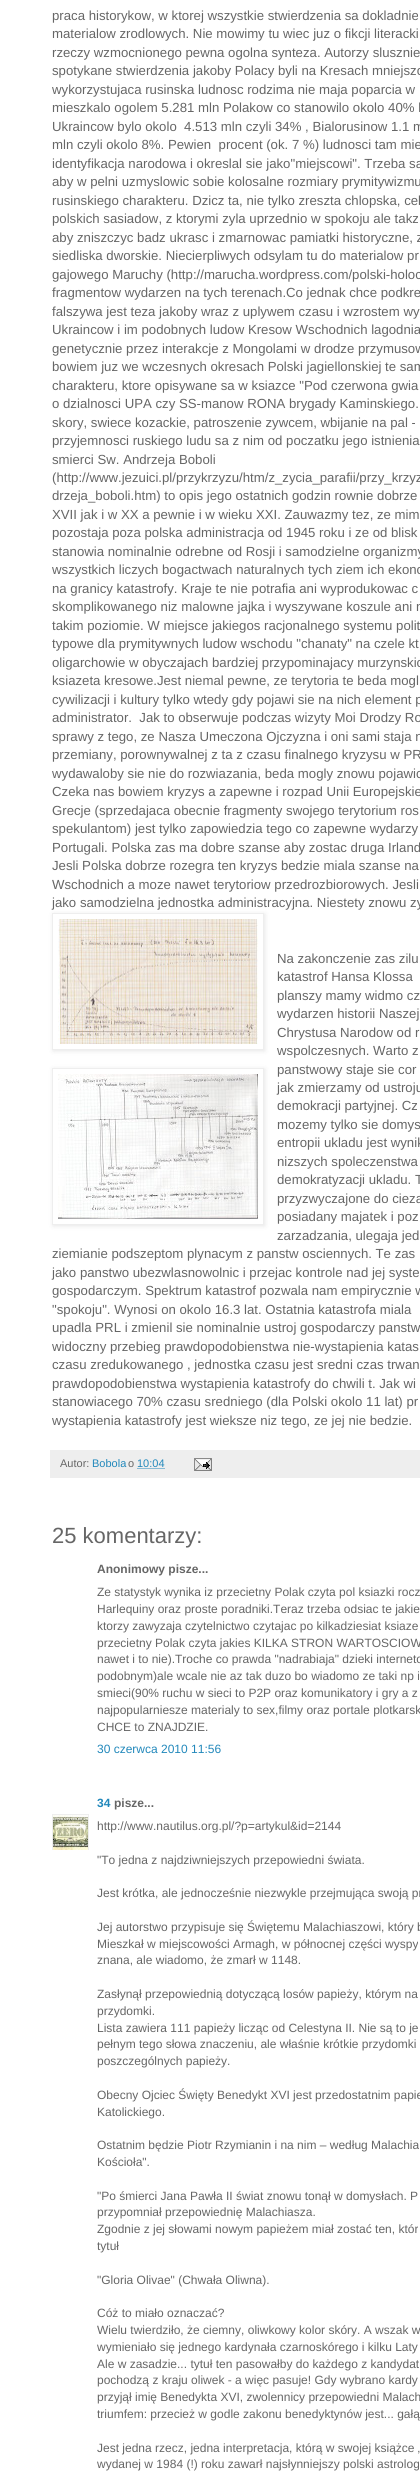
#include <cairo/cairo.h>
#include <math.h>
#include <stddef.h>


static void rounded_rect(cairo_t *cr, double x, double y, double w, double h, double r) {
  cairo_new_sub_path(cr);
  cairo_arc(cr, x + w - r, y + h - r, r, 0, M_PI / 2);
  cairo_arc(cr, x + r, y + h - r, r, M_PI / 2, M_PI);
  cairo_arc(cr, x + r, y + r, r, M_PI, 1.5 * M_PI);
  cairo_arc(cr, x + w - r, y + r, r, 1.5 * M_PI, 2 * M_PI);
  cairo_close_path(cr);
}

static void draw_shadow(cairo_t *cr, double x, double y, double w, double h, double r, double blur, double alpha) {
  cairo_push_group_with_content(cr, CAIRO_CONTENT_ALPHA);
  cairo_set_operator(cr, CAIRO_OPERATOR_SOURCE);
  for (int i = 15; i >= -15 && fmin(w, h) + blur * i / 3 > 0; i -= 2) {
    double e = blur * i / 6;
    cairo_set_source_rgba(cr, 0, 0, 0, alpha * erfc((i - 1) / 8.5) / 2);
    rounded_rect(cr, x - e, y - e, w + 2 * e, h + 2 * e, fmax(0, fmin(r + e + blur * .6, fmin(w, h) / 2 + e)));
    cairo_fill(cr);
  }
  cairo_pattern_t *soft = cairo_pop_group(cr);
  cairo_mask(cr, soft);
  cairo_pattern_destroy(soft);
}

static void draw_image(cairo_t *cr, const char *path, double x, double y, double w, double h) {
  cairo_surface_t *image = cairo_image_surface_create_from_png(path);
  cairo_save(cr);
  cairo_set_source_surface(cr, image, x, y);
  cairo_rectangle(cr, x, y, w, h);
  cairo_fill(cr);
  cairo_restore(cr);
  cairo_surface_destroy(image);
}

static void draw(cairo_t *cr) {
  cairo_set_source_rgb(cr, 1, 1, 1);
  cairo_paint(cr);
  cairo_save(cr);
  cairo_set_fill_rule(cr, CAIRO_FILL_RULE_EVEN_ODD);
  cairo_new_path(cr);
  cairo_move_to(cr, 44, 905);
  cairo_line_to(cr, 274, 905);
  cairo_line_to(cr, 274, 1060);
  cairo_line_to(cr, 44, 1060);
  cairo_close_path(cr);
  cairo_move_to(cr, 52, 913);
  cairo_line_to(cr, 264, 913);
  cairo_line_to(cr, 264, 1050);
  cairo_line_to(cr, 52, 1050);
  cairo_close_path(cr);
  cairo_clip(cr);
  cairo_set_source_rgb(cr, 0, 0, 0);
  draw_shadow(cr, 53, 914, 212, 137, 0, 2.5, 0.1);
  cairo_restore(cr);
  cairo_rectangle(cr, 52.5, 913.5, 211, 136);
  cairo_set_source_rgb(cr, 238 / 255.0, 238 / 255.0, 238 / 255.0);
  cairo_set_line_width(cr, 1);
  cairo_stroke(cr);
  draw_image(cr, "images/1.png", 58, 919, 200, 125);
  cairo_save(cr);
  cairo_set_fill_rule(cr, CAIRO_FILL_RULE_EVEN_ODD);
  cairo_new_path(cr);
  cairo_move_to(cr, 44, 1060);
  cairo_line_to(cr, 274, 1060);
  cairo_line_to(cr, 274, 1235);
  cairo_line_to(cr, 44, 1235);
  cairo_close_path(cr);
  cairo_move_to(cr, 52, 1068);
  cairo_line_to(cr, 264, 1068);
  cairo_line_to(cr, 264, 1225);
  cairo_line_to(cr, 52, 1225);
  cairo_close_path(cr);
  cairo_clip(cr);
  cairo_set_source_rgb(cr, 0, 0, 0);
  draw_shadow(cr, 53, 1069, 212, 157, 0, 2.5, 0.1);
  cairo_restore(cr);
  cairo_rectangle(cr, 52.5, 1068.5, 211, 156);
  cairo_stroke(cr);
  draw_image(cr, "images/2.png", 58, 1074, 200, 145);
  cairo_rectangle(cr, 50, 1450, 370, 28);
  cairo_fill(cr);
  cairo_new_path(cr);
  cairo_move_to(cr, 137.5, 1468.5);
  cairo_line_to(cr, 164.5, 1468.5);
  cairo_set_source_rgb(cr, 34 / 255.0, 136 / 255.0, 187 / 255.0);
  cairo_set_dash(cr, (double[]){1, 1}, 2, 0);
  cairo_stroke(cr);
  draw_image(cr, "images/3.png", 194, 1458, 18, 13);
  cairo_save(cr);
  cairo_rectangle(cr, 52, 1814, 37, 36);
  cairo_clip(cr);
  cairo_rectangle(cr, 52.5, 1814.5, 36, 36);
  cairo_set_source_rgb(cr, 238 / 255.0, 238 / 255.0, 238 / 255.0);
  cairo_set_dash(cr, NULL, 0, 0);
  cairo_stroke(cr);
  cairo_restore(cr);
  draw_image(cr, "images/4.png", 53, 1815, 35, 35);
  cairo_select_font_face(cr, "Liberation Sans", CAIRO_FONT_SLANT_NORMAL, CAIRO_FONT_WEIGHT_NORMAL);
  cairo_set_font_size(cr, 13.2);
  cairo_set_source_rgb(cr, 102 / 255.0, 102 / 255.0, 102 / 255.0);
  cairo_move_to(cr, 52, 20);
  cairo_show_text(cr, "praca historykow, w ktorej wszystkie stwierdzenia sa dokladnie");
  cairo_move_to(cr, 52, 38);
  cairo_show_text(cr, "materialow zrodlowych. Nie mowimy tu wiec juz o fikcji literacki");
  cairo_move_to(cr, 52, 57);
  cairo_show_text(cr, "rzeczy wzmocnionego pewna ogolna synteza. Autorzy slusznie");
  cairo_move_to(cr, 52, 75);
  cairo_show_text(cr, "spotykane stwierdzenia jakoby Polacy byli na Kresach mniejszo");
  cairo_move_to(cr, 52, 94);
  cairo_show_text(cr, "wykorzystujaca rusinska ludnosc rodzima nie maja poparcia w");
  cairo_move_to(cr, 52, 112);
  cairo_show_text(cr, "mieszkalo ogolem 5.281 mln Polakow co stanowilo okolo 40% l");
  cairo_move_to(cr, 52, 131);
  cairo_show_text(cr, "Ukraincow bylo okolo  4.513 mln czyli 34% , Bialorusinow 1.1 m");
  cairo_move_to(cr, 52, 149);
  cairo_show_text(cr, "mln czyli okolo 8%. Pewien  procent (ok. 7 %) ludnosci tam mie");
  cairo_move_to(cr, 52, 168);
  cairo_show_text(cr, "identyfikacja narodowa i okreslal sie jako\"miejscowi\". Trzeba sa");
  cairo_move_to(cr, 52, 186);
  cairo_show_text(cr, "aby w pelni uzmyslowic sobie kolosalne rozmiary prymitywizmu");
  cairo_move_to(cr, 52, 205);
  cairo_show_text(cr, "rusinskiego charakteru. Dzicz ta, nie tylko zreszta chlopska, cel");
  cairo_move_to(cr, 52, 223);
  cairo_show_text(cr, "polskich sasiadow, z ktorymi zyla uprzednio w spokoju ale takz");
  cairo_move_to(cr, 52, 242);
  cairo_show_text(cr, "aby zniszczyc badz ukrasc i zmarnowac pamiatki historyczne, z");
  cairo_move_to(cr, 52, 260);
  cairo_show_text(cr, "siedliska dworskie. Niecierpliwych odsylam tu do materialow pr");
  cairo_move_to(cr, 52, 279);
  cairo_show_text(cr, "gajowego Maruchy (http://marucha.wordpress.com/polski-holoc");
  cairo_move_to(cr, 52, 297);
  cairo_show_text(cr, "fragmentow wydarzen na tych terenach.Co jednak chce podkre");
  cairo_move_to(cr, 52, 316);
  cairo_show_text(cr, "falszywa jest teza jakoby wraz z uplywem czasu i wzrostem wy");
  cairo_move_to(cr, 52, 334);
  cairo_show_text(cr, "Ukraincow i im podobnych ludow Kresow Wschodnich lagodnia");
  cairo_move_to(cr, 52, 353);
  cairo_show_text(cr, "genetycznie przez interakcje z Mongolami w drodze przymusow");
  cairo_move_to(cr, 52, 371);
  cairo_show_text(cr, "bowiem juz we wczesnych okresach Polski jagiellonskiej te sam");
  cairo_move_to(cr, 52, 390);
  cairo_show_text(cr, "charakteru, ktore opisywane sa w ksiazce \"Pod czerwona gwia");
  cairo_move_to(cr, 52, 408);
  cairo_show_text(cr, "o dzialnosci UPA czy SS-manow RONA brygady Kaminskiego.");
  cairo_move_to(cr, 52, 427);
  cairo_show_text(cr, "skory, swiece kozackie, patroszenie zywcem, wbijanie na pal -");
  cairo_move_to(cr, 52, 445);
  cairo_show_text(cr, "przyjemnosci ruskiego ludu sa z nim od poczatku jego istnienia");
  cairo_move_to(cr, 52, 464);
  cairo_show_text(cr, "smierci Sw. Andrzeja Boboli");
  cairo_move_to(cr, 52, 482);
  cairo_show_text(cr, "(http://www.jezuici.pl/przykrzyzu/htm/z_zycia_parafii/przy_krzyz");
  cairo_move_to(cr, 52, 500);
  cairo_show_text(cr, "drzeja_boboli.htm) to opis jego ostatnich godzin rownie dobrze");
  cairo_move_to(cr, 52, 519);
  cairo_show_text(cr, "XVII jak i w XX a pewnie i w wieku XXI. Zauwazmy tez, ze mim");
  cairo_move_to(cr, 52, 537);
  cairo_show_text(cr, "pozostaja poza polska administracja od 1945 roku i ze od blisk");
  cairo_move_to(cr, 52, 556);
  cairo_show_text(cr, "stanowia nominalnie odrebne od Rosji i samodzielne organizmy");
  cairo_move_to(cr, 52, 574);
  cairo_show_text(cr, "wszystkich liczych bogactwach naturalnych tych ziem ich ekono");
  cairo_move_to(cr, 52, 593);
  cairo_show_text(cr, "na granicy katastrofy. Kraje te nie potrafia ani wyprodukowac c");
  cairo_move_to(cr, 52, 611);
  cairo_show_text(cr, "skomplikowanego niz malowne jajka i wyszywane koszule ani n");
  cairo_move_to(cr, 52, 630);
  cairo_show_text(cr, "takim poziomie. W miejsce jakiegos racjonalnego systemu polit");
  cairo_move_to(cr, 52, 648);
  cairo_show_text(cr, "typowe dla prymitywnych ludow wschodu \"chanaty\" na czele kt");
  cairo_move_to(cr, 52, 667);
  cairo_show_text(cr, "oligarchowie w obyczajach bardziej przypominajacy murzynskic");
  cairo_move_to(cr, 52, 685);
  cairo_show_text(cr, "ksiazeta kresowe.Jest niemal pewne, ze terytoria te beda mogl");
  cairo_move_to(cr, 52, 704);
  cairo_show_text(cr, "cywilizacji i kultury tylko wtedy gdy pojawi sie na nich element p");
  cairo_move_to(cr, 52, 722);
  cairo_show_text(cr, "administrator.  Jak to obserwuje podczas wizyty Moi Drodzy Ro");
  cairo_move_to(cr, 52, 741);
  cairo_show_text(cr, "sprawy z tego, ze Nasza Umeczona Ojczyzna i oni sami staja n");
  cairo_move_to(cr, 52, 759);
  cairo_show_text(cr, "przemiany, porownywalnej z ta z czasu finalnego kryzysu w PR");
  cairo_move_to(cr, 52, 778);
  cairo_show_text(cr, "wydawaloby sie nie do rozwiazania, beda mogly znowu pojawic");
  cairo_move_to(cr, 52, 796);
  cairo_show_text(cr, "Czeka nas bowiem kryzys a zapewne i rozpad Unii Europejskie");
  cairo_move_to(cr, 52, 815);
  cairo_show_text(cr, "Grecje (sprzedajaca obecnie fragmenty swojego terytorium ros");
  cairo_move_to(cr, 52, 833);
  cairo_show_text(cr, "spekulantom) jest tylko zapowiedzia tego co zapewne wydarzy");
  cairo_move_to(cr, 52, 852);
  cairo_show_text(cr, "Portugali. Polska zas ma dobre szanse aby zostac druga Irland");
  cairo_move_to(cr, 52, 870);
  cairo_show_text(cr, "Jesli Polska dobrze rozegra ten kryzys bedzie miala szanse na");
  cairo_move_to(cr, 52, 889);
  cairo_show_text(cr, "Wschodnich a moze nawet terytoriow przedrozbiorowych. Jesli");
  cairo_move_to(cr, 52, 907);
  cairo_show_text(cr, "jako samodzielna jednostka administracyjna. Niestety znowu zy");
  cairo_move_to(cr, 277, 963);
  cairo_show_text(cr, "Na zakonczenie zas zilu");
  cairo_move_to(cr, 277, 981);
  cairo_show_text(cr, "katastrof Hansa Klossa");
  cairo_move_to(cr, 277, 1000);
  cairo_show_text(cr, "planszy mamy widmo cz");
  cairo_move_to(cr, 277, 1018);
  cairo_show_text(cr, "wydarzen historii Naszej");
  cairo_move_to(cr, 277, 1037);
  cairo_show_text(cr, "Chrystusa Narodow od r");
  cairo_move_to(cr, 277, 1055);
  cairo_show_text(cr, "wspolczesnych. Warto z");
  cairo_move_to(cr, 277, 1074);
  cairo_show_text(cr, "panstwowy staje sie cor");
  cairo_move_to(cr, 277, 1092);
  cairo_show_text(cr, "jak zmierzamy od ustroju");
  cairo_move_to(cr, 277, 1110);
  cairo_show_text(cr, "demokracji partyjnej. Cz");
  cairo_move_to(cr, 277, 1129);
  cairo_show_text(cr, "mozemy tylko sie domys");
  cairo_move_to(cr, 277, 1147);
  cairo_show_text(cr, "entropii ukladu jest wynik");
  cairo_move_to(cr, 277, 1166);
  cairo_show_text(cr, "nizszych spoleczenstwa");
  cairo_move_to(cr, 277, 1184);
  cairo_show_text(cr, "demokratyzacji ukladu. T");
  cairo_move_to(cr, 277, 1203);
  cairo_show_text(cr, "przyzwyczajone do cieza");
  cairo_move_to(cr, 277, 1221);
  cairo_show_text(cr, "posiadany majatek i poz");
  cairo_move_to(cr, 277, 1240);
  cairo_show_text(cr, "zarzadzania, ulegaja jed");
  cairo_move_to(cr, 52, 1258);
  cairo_show_text(cr, "ziemianie podszeptom plynacym z panstw osciennych. Te zas");
  cairo_move_to(cr, 52, 1277);
  cairo_show_text(cr, "jako panstwo ubezwlasnowolnic i przejac kontrole nad jej syste");
  cairo_move_to(cr, 52, 1295);
  cairo_show_text(cr, "gospodarczym. Spektrum katastrof pozwala nam empirycznie w");
  cairo_move_to(cr, 52, 1314);
  cairo_show_text(cr, "\"spokoju\". Wynosi on okolo 16.3 lat. Ostatnia katastrofa miala");
  cairo_move_to(cr, 52, 1332);
  cairo_show_text(cr, "upadla PRL i zmienil sie nominalnie ustroj gospodarczy panstw");
  cairo_move_to(cr, 52, 1351);
  cairo_show_text(cr, "widoczny przebieg prawdopodobienstwa nie-wystapienia katas");
  cairo_move_to(cr, 52, 1369);
  cairo_show_text(cr, "czasu zredukowanego , jednostka czasu jest sredni czas trwan");
  cairo_move_to(cr, 52, 1388);
  cairo_show_text(cr, "prawdopodobienstwa wystapienia katastrofy do chwili t. Jak wi");
  cairo_move_to(cr, 52, 1406);
  cairo_show_text(cr, "stanowiacego 70% czasu sredniego (dla Polski okolo 11 lat) pr");
  cairo_move_to(cr, 52, 1425);
  cairo_show_text(cr, "wystapienia katastrofy jest wieksze niz tego, ze jej nie bedzie.");
  cairo_set_font_size(cr, 11);
  cairo_move_to(cr, 60, 1467);
  cairo_show_text(cr, "Autor:");
  cairo_set_source_rgb(cr, 34 / 255.0, 136 / 255.0, 187 / 255.0);
  cairo_move_to(cr, 92, 1467);
  cairo_show_text(cr, "Bobola");
  cairo_set_source_rgb(cr, 102 / 255.0, 102 / 255.0, 102 / 255.0);
  cairo_move_to(cr, 128, 1467);
  cairo_show_text(cr, "o");
  cairo_set_source_rgb(cr, 34 / 255.0, 136 / 255.0, 187 / 255.0);
  cairo_move_to(cr, 137, 1467);
  cairo_show_text(cr, "10:04");
  cairo_set_font_size(cr, 22);
  cairo_set_source_rgb(cr, 102 / 255.0, 102 / 255.0, 102 / 255.0);
  cairo_move_to(cr, 52, 1543);
  cairo_show_text(cr, "25 komentarzy:");
  cairo_select_font_face(cr, "Liberation Sans", CAIRO_FONT_SLANT_NORMAL, CAIRO_FONT_WEIGHT_BOLD);
  cairo_set_font_size(cr, 12);
  cairo_move_to(cr, 97, 1573);
  cairo_show_text(cr, "Anonimowy pisze...");
  cairo_select_font_face(cr, "Liberation Sans", CAIRO_FONT_SLANT_NORMAL, CAIRO_FONT_WEIGHT_NORMAL);
  cairo_move_to(cr, 97, 1596);
  cairo_show_text(cr, "Ze statystyk wynika iz przecietny Polak czyta pol ksiazki rocz");
  cairo_move_to(cr, 97, 1613);
  cairo_show_text(cr, "Harlequiny oraz proste poradniki.Teraz trzeba odsiac te jakie");
  cairo_move_to(cr, 97, 1630);
  cairo_show_text(cr, "ktorzy zawyzaja czytelnictwo czytajac po kilkadziesiat ksiaze");
  cairo_move_to(cr, 97, 1647);
  cairo_show_text(cr, "przecietny Polak czyta jakies KILKA STRON WARTOSCIOW");
  cairo_move_to(cr, 97, 1663);
  cairo_show_text(cr, "nawet i to nie).Troche co prawda \"nadrabiaja\" dzieki interneto");
  cairo_move_to(cr, 97, 1680);
  cairo_show_text(cr, "podobnym)ale wcale nie az tak duzo bo wiadomo ze taki np i");
  cairo_move_to(cr, 97, 1697);
  cairo_show_text(cr, "smieci(90% ruchu w sieci to P2P oraz komunikatory i gry a z");
  cairo_move_to(cr, 97, 1714);
  cairo_show_text(cr, "najpopularniesze materialy to sex,filmy oraz portale plotkarsk");
  cairo_move_to(cr, 97, 1731);
  cairo_show_text(cr, "CHCE to ZNAJDZIE.");
  cairo_set_source_rgb(cr, 34 / 255.0, 136 / 255.0, 187 / 255.0);
  cairo_move_to(cr, 97, 1753);
  cairo_show_text(cr, "30 czerwca 2010 11:56");
  cairo_select_font_face(cr, "Liberation Sans", CAIRO_FONT_SLANT_NORMAL, CAIRO_FONT_WEIGHT_BOLD);
  cairo_move_to(cr, 97, 1807);
  cairo_show_text(cr, "34");
  cairo_set_source_rgb(cr, 102 / 255.0, 102 / 255.0, 102 / 255.0);
  cairo_move_to(cr, 114, 1807);
  cairo_show_text(cr, "pisze...");
  cairo_select_font_face(cr, "Liberation Sans", CAIRO_FONT_SLANT_NORMAL, CAIRO_FONT_WEIGHT_NORMAL);
  cairo_move_to(cr, 97, 1830);
  cairo_show_text(cr, "http://www.nautilus.org.pl/?p=artykul&id=2144");
  cairo_move_to(cr, 97, 1864);
  cairo_show_text(cr, "\"To jedna z najdziwniejszych przepowiedni świata.");
  cairo_move_to(cr, 97, 1897);
  cairo_show_text(cr, "Jest krótka, ale jednocześnie niezwykle przejmująca swoją pr");
  cairo_move_to(cr, 97, 1931);
  cairo_show_text(cr, "Jej autorstwo przypisuje się Świętemu Malachiaszowi, który b");
  cairo_move_to(cr, 97, 1948);
  cairo_show_text(cr, "Mieszkał w miejscowości Armagh, w północnej części wyspy");
  cairo_move_to(cr, 97, 1964);
  cairo_show_text(cr, "znana, ale wiadomo, że zmarł w 1148.");
  cairo_move_to(cr, 97, 1998);
  cairo_show_text(cr, "Zasłynął przepowiednią dotyczącą losów papieży, którym na");
  cairo_move_to(cr, 97, 2015);
  cairo_show_text(cr, "przydomki.");
  cairo_move_to(cr, 97, 2032);
  cairo_show_text(cr, "Lista zawiera 111 papieży licząc od Celestyna II. Nie są to je");
  cairo_move_to(cr, 97, 2048);
  cairo_show_text(cr, "pełnym tego słowa znaczeniu, ale właśnie krótkie przydomki");
  cairo_move_to(cr, 97, 2065);
  cairo_show_text(cr, "poszczególnych papieży.");
  cairo_move_to(cr, 97, 2099);
  cairo_show_text(cr, "Obecny Ojciec Święty Benedykt XVI jest przedostatnim papie");
  cairo_move_to(cr, 97, 2116);
  cairo_show_text(cr, "Katolickiego.");
  cairo_move_to(cr, 97, 2149);
  cairo_show_text(cr, "Ostatnim będzie Piotr Rzymianin i na nim – według Malachia");
  cairo_move_to(cr, 97, 2166);
  cairo_show_text(cr, "Kościoła\".");
  cairo_move_to(cr, 97, 2200);
  cairo_show_text(cr, "\"Po śmierci Jana Pawła II świat znowu tonął w domysłach. P");
  cairo_move_to(cr, 97, 2216);
  cairo_show_text(cr, "przypomniał przepowiednię Malachiasza.");
  cairo_move_to(cr, 97, 2233);
  cairo_show_text(cr, "Zgodnie z jej słowami nowym papieżem miał zostać ten, któr");
  cairo_move_to(cr, 97, 2250);
  cairo_show_text(cr, "tytuł");
  cairo_move_to(cr, 97, 2284);
  cairo_show_text(cr, "\"Gloria Olivae\" (Chwała Oliwna).");
  cairo_move_to(cr, 97, 2317);
  cairo_show_text(cr, "Cóż to miało oznaczać?");
  cairo_move_to(cr, 97, 2334);
  cairo_show_text(cr, "Wielu twierdziło, że ciemny, oliwkowy kolor skóry. A wszak w");
  cairo_move_to(cr, 97, 2351);
  cairo_show_text(cr, "wymieniało się jednego kardynała czarnoskórego i kilku Laty");
  cairo_move_to(cr, 97, 2368);
  cairo_show_text(cr, "Ale w zasadzie... tytuł ten pasowałby do każdego z kandydat");
  cairo_move_to(cr, 97, 2384);
  cairo_show_text(cr, "pochodzą z kraju oliwek - a więc pasuje! Gdy wybrano kardy");
  cairo_move_to(cr, 97, 2401);
  cairo_show_text(cr, "przyjął imię Benedykta XVI, zwolennicy przepowiedni Malach");
  cairo_move_to(cr, 97, 2418);
  cairo_show_text(cr, "triumfem: przecież w godle zakonu benedyktynów jest... gałą");
  cairo_move_to(cr, 97, 2452);
  cairo_show_text(cr, "Jest jedna rzecz, jedna interpretacja, którą w swojej książce „");
  cairo_move_to(cr, 97, 2468);
  cairo_show_text(cr, "wydanej w 1984 (!) roku zawarł najsłynniejszy polski astrolog");
}

int main(void) {
  cairo_surface_t *surface = cairo_image_surface_create(CAIRO_FORMAT_RGB24, 420, 2471);
  cairo_t *cr = cairo_create(surface);
  cairo_font_options_t *options = cairo_font_options_create();
  cairo_font_options_set_hint_metrics(options, CAIRO_HINT_METRICS_OFF);
  cairo_font_options_set_hint_style(options, CAIRO_HINT_STYLE_NONE);
  cairo_set_font_options(cr, options);
  cairo_set_miter_limit(cr, 4);
  draw(cr);
  cairo_surface_write_to_png(surface, "out.png");
  cairo_font_options_destroy(options);
  cairo_destroy(cr);
  cairo_surface_destroy(surface);
  return 0;
}
